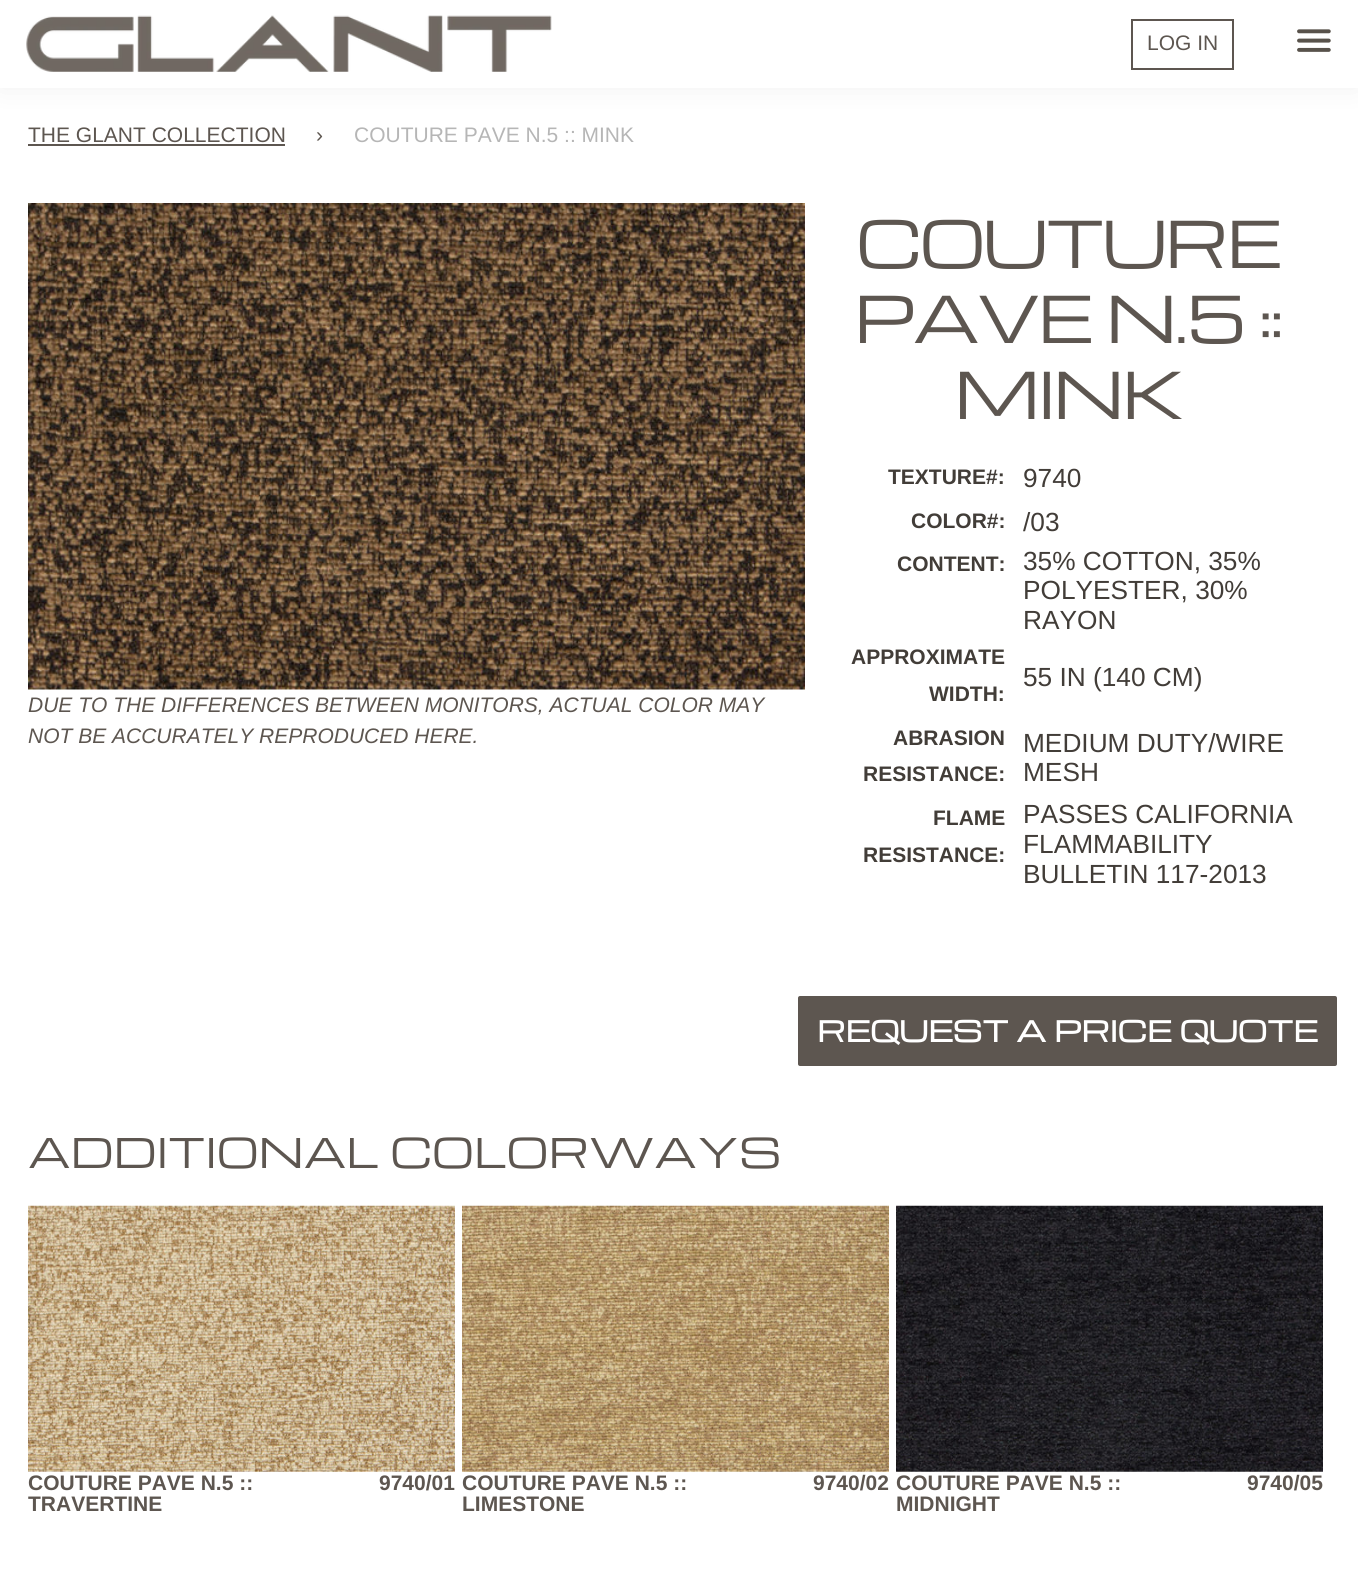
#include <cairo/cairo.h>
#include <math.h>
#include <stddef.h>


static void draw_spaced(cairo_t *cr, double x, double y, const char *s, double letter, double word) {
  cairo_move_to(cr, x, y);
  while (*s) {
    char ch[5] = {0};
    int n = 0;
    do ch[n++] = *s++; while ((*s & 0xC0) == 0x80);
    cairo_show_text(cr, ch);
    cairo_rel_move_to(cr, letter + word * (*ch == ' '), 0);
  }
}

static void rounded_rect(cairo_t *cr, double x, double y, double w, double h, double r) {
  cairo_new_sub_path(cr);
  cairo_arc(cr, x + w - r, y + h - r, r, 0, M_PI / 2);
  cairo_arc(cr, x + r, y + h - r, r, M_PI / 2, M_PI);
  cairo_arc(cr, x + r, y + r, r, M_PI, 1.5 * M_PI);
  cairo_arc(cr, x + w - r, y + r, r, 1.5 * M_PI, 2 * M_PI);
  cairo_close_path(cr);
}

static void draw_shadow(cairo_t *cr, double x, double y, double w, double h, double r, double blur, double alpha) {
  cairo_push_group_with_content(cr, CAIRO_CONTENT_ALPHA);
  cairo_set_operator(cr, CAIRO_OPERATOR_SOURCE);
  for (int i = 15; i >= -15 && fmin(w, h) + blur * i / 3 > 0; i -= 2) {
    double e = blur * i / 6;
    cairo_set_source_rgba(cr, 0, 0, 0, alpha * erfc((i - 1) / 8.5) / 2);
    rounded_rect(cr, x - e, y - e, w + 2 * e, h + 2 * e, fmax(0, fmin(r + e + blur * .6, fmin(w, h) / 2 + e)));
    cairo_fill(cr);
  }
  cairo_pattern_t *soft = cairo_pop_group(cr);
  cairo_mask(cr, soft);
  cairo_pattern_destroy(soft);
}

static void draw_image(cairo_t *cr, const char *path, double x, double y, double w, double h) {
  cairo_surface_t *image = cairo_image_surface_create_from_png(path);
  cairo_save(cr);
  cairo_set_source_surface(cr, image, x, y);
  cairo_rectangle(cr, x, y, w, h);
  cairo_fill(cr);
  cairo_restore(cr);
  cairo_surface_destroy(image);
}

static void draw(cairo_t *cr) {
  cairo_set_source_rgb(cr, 1, 1, 1);
  cairo_paint(cr);
  cairo_set_source_rgb(cr, 0, 0, 0);
  draw_shadow(cr, 0, 0, 1358, 88, 0, 14, 0.06);
  cairo_set_source_rgb(cr, 1, 1, 1);
  cairo_rectangle(cr, 0, 0, 1358, 88);
  cairo_fill(cr);
  draw_image(cr, "images/1.png", 26, 15, 526, 57);
  cairo_rectangle(cr, 1132, 20, 101, 49);
  cairo_set_source_rgb(cr, 93 / 255.0, 86 / 255.0, 80 / 255.0);
  cairo_stroke(cr);
  draw_image(cr, "images/2.png", 1297, 29, 34, 23);
  cairo_rectangle(cr, 28, 144, 257, 2);
  cairo_fill(cr);
  draw_image(cr, "images/3.png", 28, 203, 777, 487);
  rounded_rect(cr, 798, 996, 539, 70, 2);
  cairo_fill(cr);
  draw_image(cr, "images/4.png", 28, 1205, 427, 267);
  draw_image(cr, "images/5.png", 462, 1205, 427, 267);
  draw_image(cr, "images/6.png", 896, 1205, 427, 267);
  cairo_select_font_face(cr, "Liberation Sans", CAIRO_FONT_SLANT_NORMAL, CAIRO_FONT_WEIGHT_NORMAL);
  cairo_set_font_size(cr, 21);
  cairo_move_to(cr, 1147, 50);
  cairo_show_text(cr, "LOG IN");
  cairo_move_to(cr, 28, 142);
  cairo_show_text(cr, "THE GLANT COLLECTION");
  cairo_move_to(cr, 316, 142);
  cairo_show_text(cr, "›");
  cairo_set_source_rgb(cr, 182 / 255.0, 182 / 255.0, 182 / 255.0);
  cairo_move_to(cr, 354, 142);
  cairo_show_text(cr, "COUTURE PAVE N.5 :: MINK");
  cairo_select_font_face(cr, "Liberation Sans", CAIRO_FONT_SLANT_ITALIC, CAIRO_FONT_WEIGHT_NORMAL);
  cairo_set_source_rgb(cr, 93 / 255.0, 86 / 255.0, 80 / 255.0);
  cairo_move_to(cr, 28, 712);
  cairo_show_text(cr, "DUE TO THE DIFFERENCES BETWEEN MONITORS, ACTUAL COLOR MAY");
  cairo_move_to(cr, 28, 743);
  cairo_show_text(cr, "NOT BE ACCURATELY REPRODUCED HERE.");
  cairo_select_font_face(cr, "Michroma", CAIRO_FONT_SLANT_NORMAL, CAIRO_FONT_WEIGHT_NORMAL);
  cairo_set_font_size(cr, 63);
  draw_spaced(cr, 856, 268, "COUTURE", -2.5, 0);
  draw_spaced(cr, 854, 343, "PAVE N.5 ::", -2.5, 0);
  draw_spaced(cr, 954, 419, "MINK", -2.5, 0);
  cairo_select_font_face(cr, "Liberation Sans", CAIRO_FONT_SLANT_NORMAL, CAIRO_FONT_WEIGHT_BOLD);
  cairo_set_font_size(cr, 21);
  cairo_set_source_rgb(cr, 66 / 255.0, 61 / 255.0, 56 / 255.0);
  cairo_move_to(cr, 888, 484);
  cairo_show_text(cr, "TEXTURE#:");
  cairo_select_font_face(cr, "Liberation Sans", CAIRO_FONT_SLANT_NORMAL, CAIRO_FONT_WEIGHT_NORMAL);
  cairo_set_font_size(cr, 26.25);
  cairo_move_to(cr, 1023, 487);
  cairo_show_text(cr, "9740");
  cairo_select_font_face(cr, "Liberation Sans", CAIRO_FONT_SLANT_NORMAL, CAIRO_FONT_WEIGHT_BOLD);
  cairo_set_font_size(cr, 21);
  cairo_move_to(cr, 911, 528);
  cairo_show_text(cr, "COLOR#:");
  cairo_select_font_face(cr, "Liberation Sans", CAIRO_FONT_SLANT_NORMAL, CAIRO_FONT_WEIGHT_NORMAL);
  cairo_set_font_size(cr, 26.25);
  cairo_move_to(cr, 1023, 531);
  cairo_show_text(cr, "/03");
  cairo_select_font_face(cr, "Liberation Sans", CAIRO_FONT_SLANT_NORMAL, CAIRO_FONT_WEIGHT_BOLD);
  cairo_set_font_size(cr, 21);
  cairo_move_to(cr, 897, 571);
  cairo_show_text(cr, "CONTENT:");
  cairo_select_font_face(cr, "Liberation Sans", CAIRO_FONT_SLANT_NORMAL, CAIRO_FONT_WEIGHT_NORMAL);
  cairo_set_font_size(cr, 26.25);
  cairo_move_to(cr, 1023, 570);
  cairo_show_text(cr, "35% COTTON, 35%");
  cairo_move_to(cr, 1023, 599);
  cairo_show_text(cr, "POLYESTER, 30%");
  cairo_move_to(cr, 1023, 629);
  cairo_show_text(cr, "RAYON");
  cairo_select_font_face(cr, "Liberation Sans", CAIRO_FONT_SLANT_NORMAL, CAIRO_FONT_WEIGHT_BOLD);
  cairo_set_font_size(cr, 21);
  cairo_move_to(cr, 851, 664);
  cairo_show_text(cr, "APPROXIMATE");
  cairo_move_to(cr, 929, 701);
  cairo_show_text(cr, "WIDTH:");
  cairo_select_font_face(cr, "Liberation Sans", CAIRO_FONT_SLANT_NORMAL, CAIRO_FONT_WEIGHT_NORMAL);
  cairo_set_font_size(cr, 26.25);
  cairo_move_to(cr, 1023, 686);
  cairo_show_text(cr, "55 IN (140 CM)");
  cairo_select_font_face(cr, "Liberation Sans", CAIRO_FONT_SLANT_NORMAL, CAIRO_FONT_WEIGHT_BOLD);
  cairo_set_font_size(cr, 21);
  cairo_move_to(cr, 893, 745);
  cairo_show_text(cr, "ABRASION");
  cairo_move_to(cr, 863, 781);
  cairo_show_text(cr, "RESISTANCE:");
  cairo_select_font_face(cr, "Liberation Sans", CAIRO_FONT_SLANT_NORMAL, CAIRO_FONT_WEIGHT_NORMAL);
  cairo_set_font_size(cr, 26.25);
  cairo_move_to(cr, 1023, 752);
  cairo_show_text(cr, "MEDIUM DUTY/WIRE");
  cairo_move_to(cr, 1023, 781);
  cairo_show_text(cr, "MESH");
  cairo_select_font_face(cr, "Liberation Sans", CAIRO_FONT_SLANT_NORMAL, CAIRO_FONT_WEIGHT_BOLD);
  cairo_set_font_size(cr, 21);
  cairo_move_to(cr, 933, 825);
  cairo_show_text(cr, "FLAME");
  cairo_move_to(cr, 863, 862);
  cairo_show_text(cr, "RESISTANCE:");
  cairo_select_font_face(cr, "Liberation Sans", CAIRO_FONT_SLANT_NORMAL, CAIRO_FONT_WEIGHT_NORMAL);
  cairo_set_font_size(cr, 26.25);
  cairo_move_to(cr, 1023, 823);
  cairo_show_text(cr, "PASSES CALIFORNIA");
  cairo_move_to(cr, 1023, 853);
  cairo_show_text(cr, "FLAMMABILITY");
  cairo_move_to(cr, 1023, 883);
  cairo_show_text(cr, "BULLETIN 117-2013");
  cairo_select_font_face(cr, "Michroma", CAIRO_FONT_SLANT_NORMAL, CAIRO_FONT_WEIGHT_BOLD);
  cairo_set_font_size(cr, 28);
  cairo_set_source_rgb(cr, 1, 1, 1);
  cairo_move_to(cr, 817, 1042);
  cairo_show_text(cr, "REQUEST A PRICE QUOTE");
  cairo_select_font_face(cr, "Michroma", CAIRO_FONT_SLANT_NORMAL, CAIRO_FONT_WEIGHT_NORMAL);
  cairo_set_font_size(cr, 40);
  cairo_set_source_rgb(cr, 93 / 255.0, 86 / 255.0, 80 / 255.0);
  cairo_move_to(cr, 28, 1168);
  cairo_show_text(cr, "ADDITIONAL COLORWAYS");
  cairo_select_font_face(cr, "Liberation Sans", CAIRO_FONT_SLANT_NORMAL, CAIRO_FONT_WEIGHT_BOLD);
  cairo_set_font_size(cr, 21);
  cairo_move_to(cr, 28, 1490);
  cairo_show_text(cr, "COUTURE PAVE N.5 ::");
  cairo_move_to(cr, 28, 1511);
  cairo_show_text(cr, "TRAVERTINE");
  cairo_move_to(cr, 379, 1490);
  cairo_show_text(cr, "9740/01");
  cairo_move_to(cr, 462, 1490);
  cairo_show_text(cr, "COUTURE PAVE N.5 ::");
  cairo_move_to(cr, 462, 1511);
  cairo_show_text(cr, "LIMESTONE");
  cairo_move_to(cr, 813, 1490);
  cairo_show_text(cr, "9740/02");
  cairo_move_to(cr, 896, 1490);
  cairo_show_text(cr, "COUTURE PAVE N.5 ::");
  cairo_move_to(cr, 896, 1511);
  cairo_show_text(cr, "MIDNIGHT");
  cairo_move_to(cr, 1247, 1490);
  cairo_show_text(cr, "9740/05");
}

int main(void) {
  cairo_surface_t *surface = cairo_image_surface_create(CAIRO_FORMAT_RGB24, 1358, 1594);
  cairo_t *cr = cairo_create(surface);
  cairo_font_options_t *options = cairo_font_options_create();
  cairo_font_options_set_hint_metrics(options, CAIRO_HINT_METRICS_OFF);
  cairo_font_options_set_hint_style(options, CAIRO_HINT_STYLE_NONE);
  cairo_set_font_options(cr, options);
  cairo_set_miter_limit(cr, 4);
  draw(cr);
  cairo_surface_write_to_png(surface, "out.png");
  cairo_font_options_destroy(options);
  cairo_destroy(cr);
  cairo_surface_destroy(surface);
  return 0;
}
